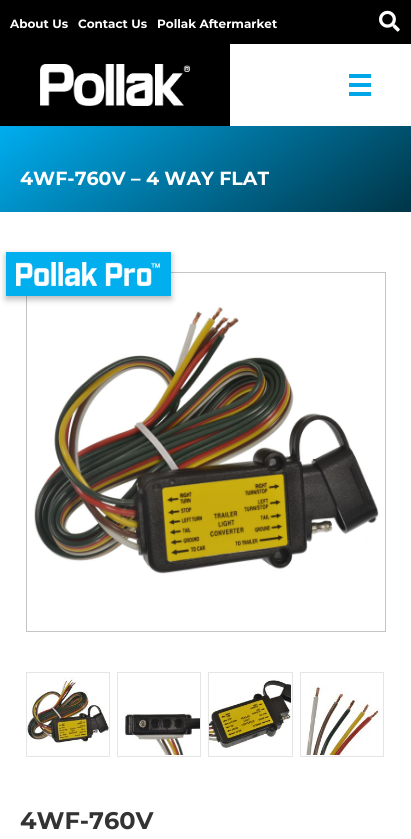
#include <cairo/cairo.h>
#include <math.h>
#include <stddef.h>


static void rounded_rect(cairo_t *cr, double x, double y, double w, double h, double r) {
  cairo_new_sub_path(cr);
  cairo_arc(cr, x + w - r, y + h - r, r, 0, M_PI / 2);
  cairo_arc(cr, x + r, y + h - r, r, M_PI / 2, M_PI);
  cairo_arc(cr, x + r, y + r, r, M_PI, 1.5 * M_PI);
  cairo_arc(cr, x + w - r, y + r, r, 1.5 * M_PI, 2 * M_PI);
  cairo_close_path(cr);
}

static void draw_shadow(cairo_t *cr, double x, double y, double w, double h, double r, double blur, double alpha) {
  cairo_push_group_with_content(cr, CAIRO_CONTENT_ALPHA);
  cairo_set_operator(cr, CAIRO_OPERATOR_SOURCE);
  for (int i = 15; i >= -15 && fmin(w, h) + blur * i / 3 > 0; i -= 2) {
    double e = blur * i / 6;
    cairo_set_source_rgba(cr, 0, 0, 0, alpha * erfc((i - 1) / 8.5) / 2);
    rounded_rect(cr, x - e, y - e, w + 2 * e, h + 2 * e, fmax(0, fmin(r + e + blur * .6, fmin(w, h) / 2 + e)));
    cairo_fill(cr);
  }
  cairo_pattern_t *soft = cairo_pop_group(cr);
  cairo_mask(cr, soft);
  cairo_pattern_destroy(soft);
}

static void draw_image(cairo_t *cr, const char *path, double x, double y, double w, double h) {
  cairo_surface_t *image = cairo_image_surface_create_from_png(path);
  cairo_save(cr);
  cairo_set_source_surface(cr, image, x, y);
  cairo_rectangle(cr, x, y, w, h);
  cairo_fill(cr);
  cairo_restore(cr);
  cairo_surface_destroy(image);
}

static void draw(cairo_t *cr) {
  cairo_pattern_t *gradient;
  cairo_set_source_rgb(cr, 1, 1, 1);
  cairo_paint(cr);
  cairo_set_source_rgb(cr, 0, 0, 0);
  cairo_rectangle(cr, 0, 0, 411, 44);
  cairo_fill(cr);
  draw_image(cr, "images/1.png", 379, 10, 21, 22);
  cairo_rectangle(cr, 0, 44, 230, 82);
  cairo_fill(cr);
  draw_image(cr, "images/2.png", 40, 64, 150, 42);
  cairo_set_source_rgb(cr, 0, 166 / 255.0, 232 / 255.0);
  cairo_rectangle(cr, 349, 74, 22, 4);
  cairo_fill(cr);
  cairo_rectangle(cr, 349, 83, 22, 4);
  cairo_fill(cr);
  cairo_rectangle(cr, 349, 92, 22, 4);
  cairo_fill(cr);
  gradient = cairo_pattern_create_linear(118, 44, 293, 294);
  cairo_pattern_add_color_stop_rgba(gradient, 0, 0, 173 / 255.0, 239 / 255.0, 1);
  cairo_pattern_add_color_stop_rgba(gradient, 1, 0, 53 / 255.0, 71 / 255.0, 1);
  cairo_set_source(cr, gradient);
  cairo_pattern_destroy(gradient);
  cairo_rectangle(cr, 0, 126, 411, 86);
  cairo_fill(cr);
  cairo_rectangle(cr, 26.5, 272.5, 359, 359);
  cairo_set_source_rgb(cr, 196 / 255.0, 196 / 255.0, 196 / 255.0);
  cairo_set_line_width(cr, 1);
  cairo_stroke(cr);
  draw_image(cr, "images/4.png", 34, 306, 345, 268);
  cairo_set_source_rgb(cr, 0, 0, 0);
  draw_shadow(cr, 6, 255, 165, 44, 0, 3.5, 0.3);
  cairo_set_source_rgb(cr, 1 / 255.0, 175 / 255.0, 239 / 255.0);
  cairo_rectangle(cr, 6, 252, 165, 44);
  cairo_fill(cr);
  draw_image(cr, "images/3.png", 16, 262, 144, 24);
  cairo_rectangle(cr, 26.5, 672.5, 83, 84);
  cairo_set_source_rgb(cr, 229 / 255.0, 229 / 255.0, 229 / 255.0);
  cairo_stroke(cr);
  draw_image(cr, "images/5.png", 27, 677, 82, 66);
  cairo_rectangle(cr, 117.5, 672.5, 83, 84);
  cairo_stroke(cr);
  draw_image(cr, "images/6.png", 124, 712, 76, 43);
  cairo_rectangle(cr, 208.5, 672.5, 84, 84);
  cairo_stroke(cr);
  draw_image(cr, "images/7.png", 209, 679, 82, 71);
  cairo_rectangle(cr, 300.5, 672.5, 83, 84);
  cairo_stroke(cr);
  draw_image(cr, "images/8.png", 306, 682, 74, 73);
  cairo_select_font_face(cr, "Montserrat", CAIRO_FONT_SLANT_NORMAL, CAIRO_FONT_WEIGHT_BOLD);
  cairo_set_font_size(cr, 12);
  cairo_set_source_rgb(cr, 1, 1, 1);
  cairo_move_to(cr, 10, 28);
  cairo_show_text(cr, "About Us");
  cairo_move_to(cr, 78, 28);
  cairo_show_text(cr, "Contact Us");
  cairo_move_to(cr, 157, 28);
  cairo_show_text(cr, "Pollak Aftermarket");
  cairo_set_font_size(cr, 19);
  cairo_move_to(cr, 20, 185);
  cairo_show_text(cr, "4WF-760V – 4 WAY FLAT");
  cairo_set_font_size(cr, 24);
  cairo_set_source_rgb(cr, 51 / 255.0, 51 / 255.0, 51 / 255.0);
  cairo_move_to(cr, 20, 829);
  cairo_show_text(cr, "4WF-760V");
}

int main(void) {
  cairo_surface_t *surface = cairo_image_surface_create(CAIRO_FORMAT_RGB24, 411, 839);
  cairo_t *cr = cairo_create(surface);
  cairo_font_options_t *options = cairo_font_options_create();
  cairo_font_options_set_hint_metrics(options, CAIRO_HINT_METRICS_OFF);
  cairo_font_options_set_hint_style(options, CAIRO_HINT_STYLE_NONE);
  cairo_set_font_options(cr, options);
  cairo_set_miter_limit(cr, 4);
  draw(cr);
  cairo_surface_write_to_png(surface, "out.png");
  cairo_font_options_destroy(options);
  cairo_destroy(cr);
  cairo_surface_destroy(surface);
  return 0;
}
